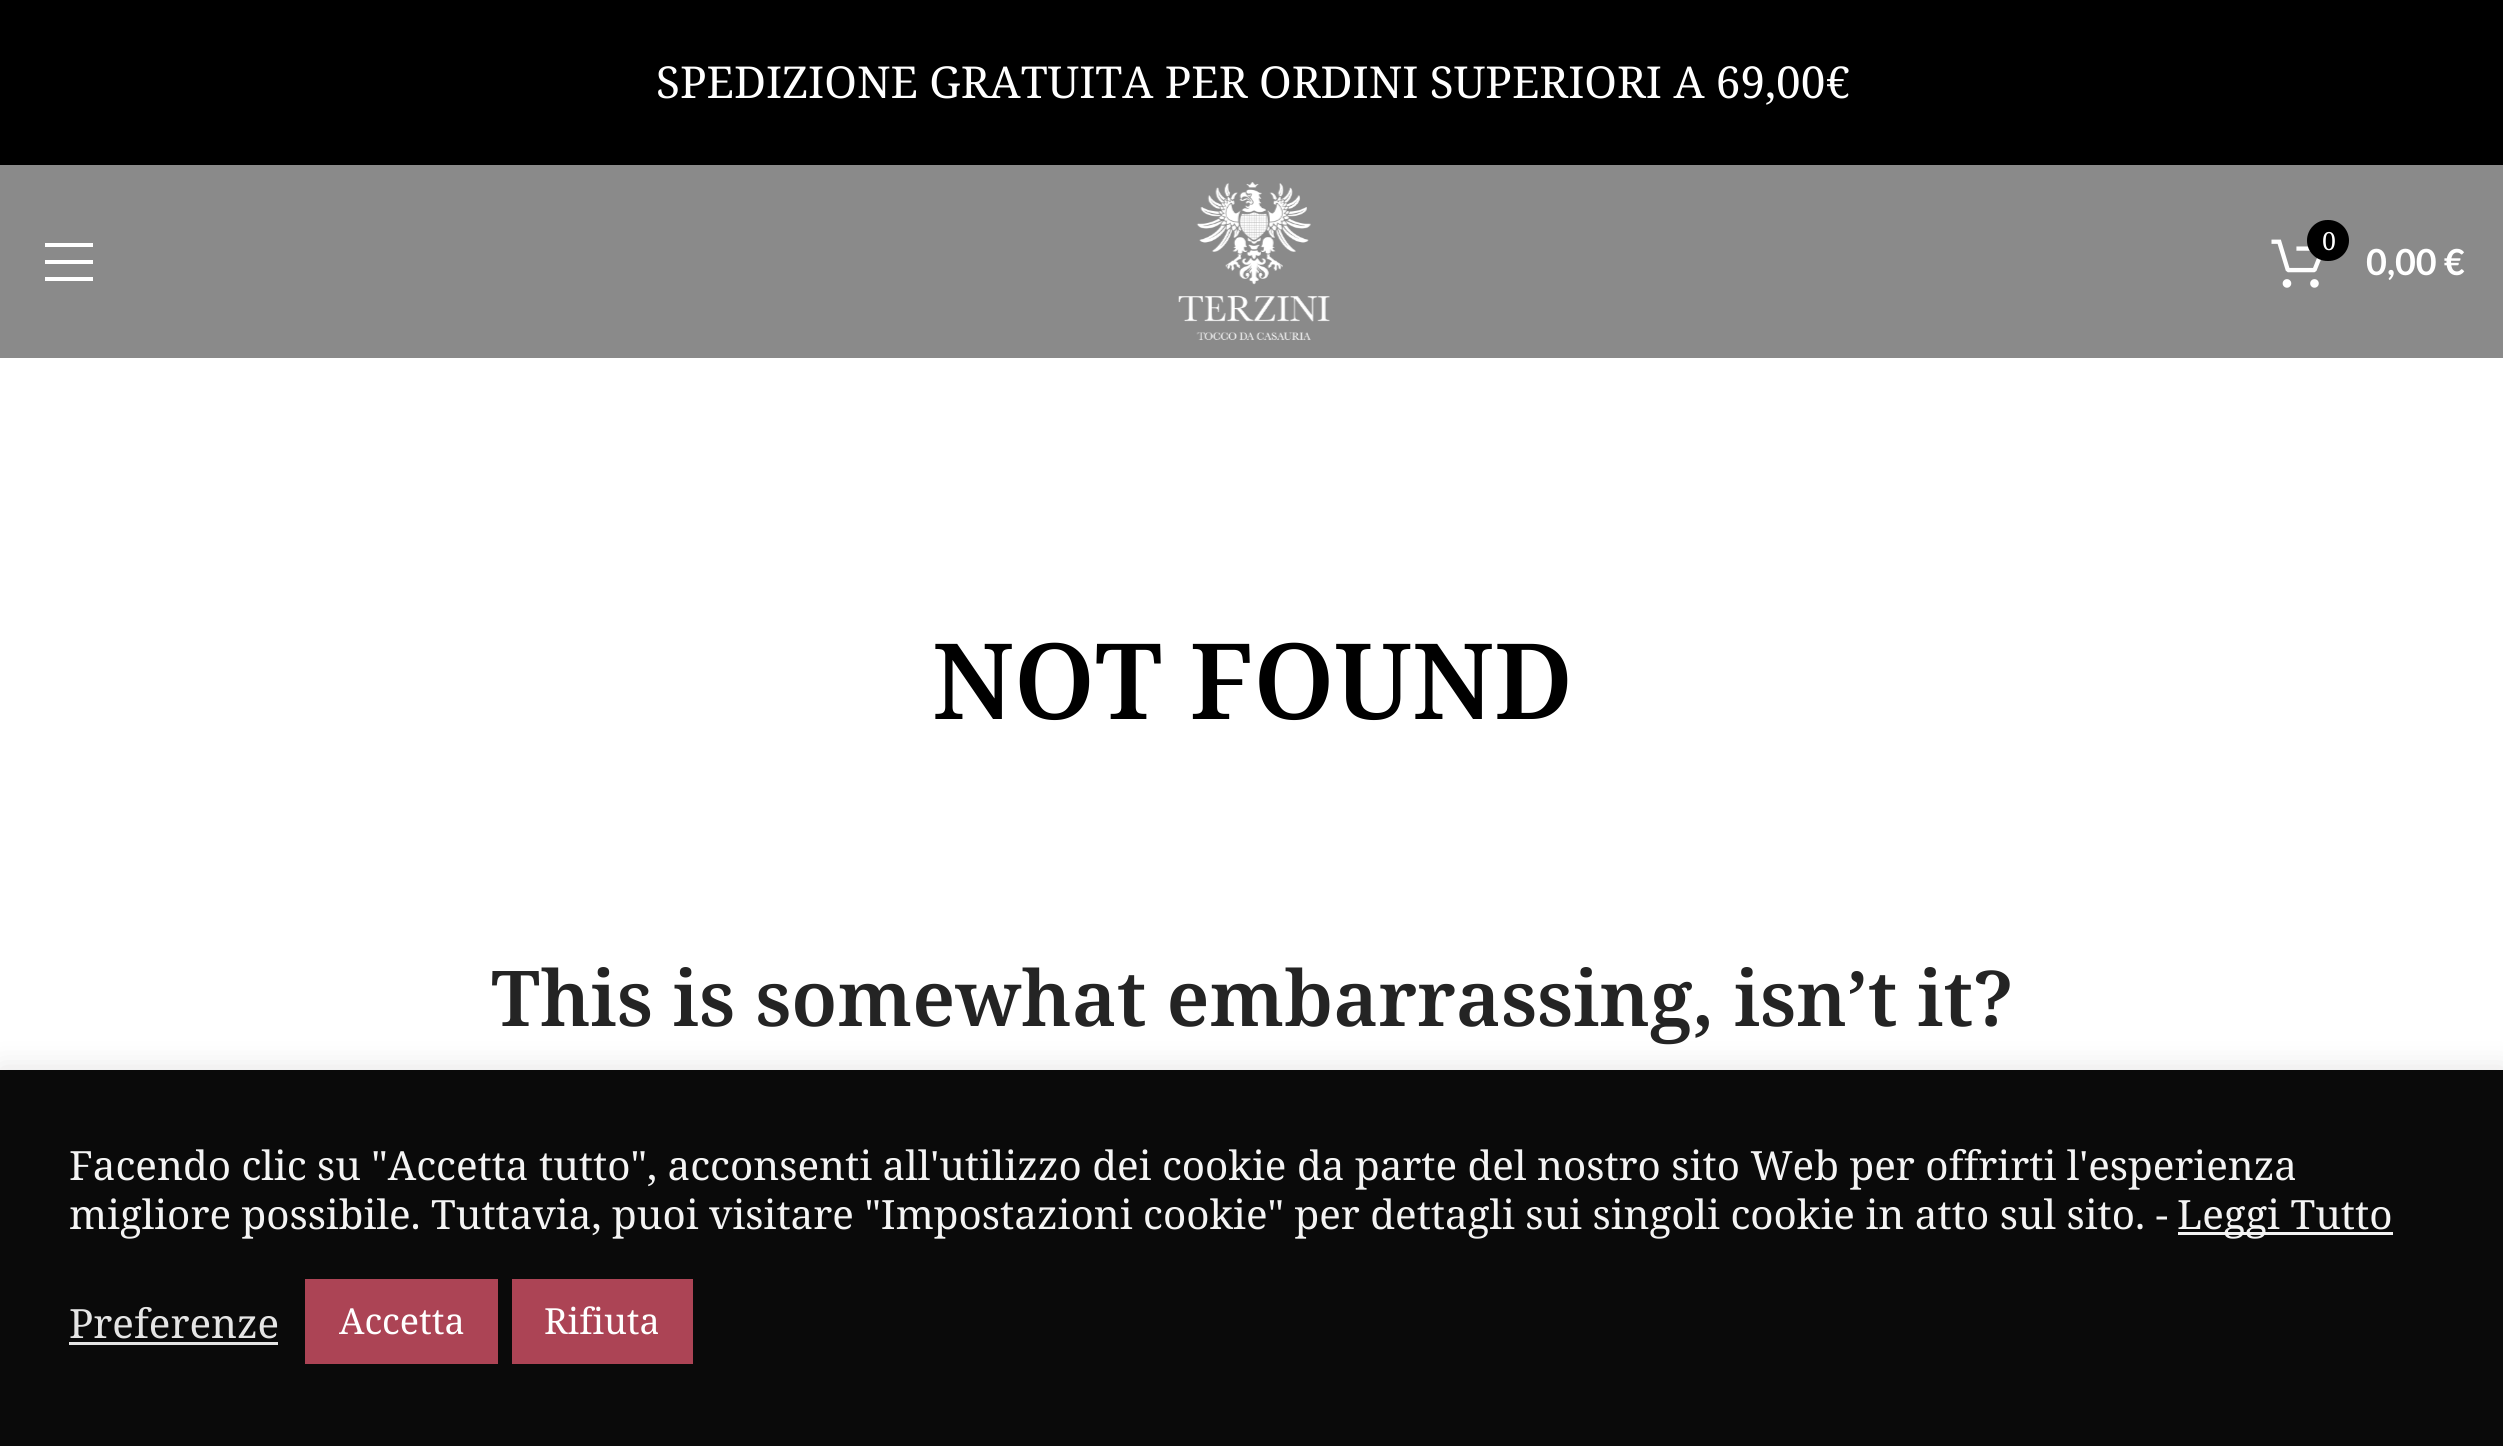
#include <cairo/cairo.h>
#include <math.h>
#include <stddef.h>


static void rounded_rect(cairo_t *cr, double x, double y, double w, double h, double r) {
  cairo_new_sub_path(cr);
  cairo_arc(cr, x + w - r, y + h - r, r, 0, M_PI / 2);
  cairo_arc(cr, x + r, y + h - r, r, M_PI / 2, M_PI);
  cairo_arc(cr, x + r, y + r, r, M_PI, 1.5 * M_PI);
  cairo_arc(cr, x + w - r, y + r, r, 1.5 * M_PI, 2 * M_PI);
  cairo_close_path(cr);
}

static void draw_shadow(cairo_t *cr, double x, double y, double w, double h, double r, double blur, double alpha) {
  cairo_push_group_with_content(cr, CAIRO_CONTENT_ALPHA);
  cairo_set_operator(cr, CAIRO_OPERATOR_SOURCE);
  for (int i = 15; i >= -15 && fmin(w, h) + blur * i / 3 > 0; i -= 2) {
    double e = blur * i / 6;
    cairo_set_source_rgba(cr, 0, 0, 0, alpha * erfc((i - 1) / 8.5) / 2);
    rounded_rect(cr, x - e, y - e, w + 2 * e, h + 2 * e, fmax(0, fmin(r + e + blur * .6, fmin(w, h) / 2 + e)));
    cairo_fill(cr);
  }
  cairo_pattern_t *soft = cairo_pop_group(cr);
  cairo_mask(cr, soft);
  cairo_pattern_destroy(soft);
}

static void draw_image(cairo_t *cr, const char *path, double x, double y, double w, double h) {
  cairo_surface_t *image = cairo_image_surface_create_from_png(path);
  cairo_save(cr);
  cairo_set_source_surface(cr, image, x, y);
  cairo_rectangle(cr, x, y, w, h);
  cairo_fill(cr);
  cairo_restore(cr);
  cairo_surface_destroy(image);
}

static void draw(cairo_t *cr) {
  cairo_set_source_rgb(cr, 1, 1, 1);
  cairo_paint(cr);
  cairo_set_source_rgb(cr, 0, 0, 0);
  cairo_rectangle(cr, 0, 0, 2503, 165);
  cairo_fill(cr);
  cairo_set_source_rgb(cr, 138 / 255.0, 138 / 255.0, 138 / 255.0);
  cairo_rectangle(cr, 0, 165, 2503, 193);
  cairo_fill(cr);
  cairo_set_source_rgb(cr, 1, 1, 1);
  cairo_new_path(cr);
  cairo_move_to(cr, 45, 247);
  cairo_line_to(cr, 93, 247);
  cairo_line_to(cr, 93, 243);
  cairo_line_to(cr, 45, 243);
  cairo_close_path(cr);
  cairo_move_to(cr, 45, 264);
  cairo_line_to(cr, 93, 264);
  cairo_line_to(cr, 93, 260);
  cairo_line_to(cr, 45, 260);
  cairo_close_path(cr);
  cairo_move_to(cr, 45, 281);
  cairo_line_to(cr, 93, 281);
  cairo_line_to(cr, 93, 277);
  cairo_line_to(cr, 45, 277);
  cairo_close_path(cr);
  cairo_fill(cr);
  draw_image(cr, "images/1.png", 1178, 182, 152, 158);
  draw_image(cr, "images/2.png", 2271, 239, 51, 49);
  cairo_set_source_rgb(cr, 0, 0, 0);
  rounded_rect(cr, 2307, 220, 42, 41, 20.5);
  cairo_fill(cr);
  cairo_set_source_rgb(cr, 172 / 255.0, 171 / 255.0, 171 / 255.0);
  draw_shadow(cr, 0, 1067, 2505, 377, 0, 14, 0.3);
  cairo_set_source_rgb(cr, 10 / 255.0, 10 / 255.0, 10 / 255.0);
  cairo_rectangle(cr, 0, 1070, 2503, 376);
  cairo_fill(cr);
  cairo_set_source_rgb(cr, 242 / 255.0, 242 / 255.0, 242 / 255.0);
  cairo_rectangle(cr, 2178, 1232, 215, 3);
  cairo_fill(cr);
  cairo_set_source_rgb(cr, 229 / 255.0, 229 / 255.0, 229 / 255.0);
  cairo_rectangle(cr, 69, 1342, 209, 3);
  cairo_fill(cr);
  cairo_set_source_rgb(cr, 172 / 255.0, 68 / 255.0, 85 / 255.0);
  cairo_rectangle(cr, 305, 1279, 193, 85);
  cairo_fill(cr);
  cairo_rectangle(cr, 512, 1279, 181, 85);
  cairo_fill(cr);
  cairo_select_font_face(cr, "Noto Serif", CAIRO_FONT_SLANT_NORMAL, CAIRO_FONT_WEIGHT_NORMAL);
  cairo_set_font_size(cr, 44);
  cairo_set_source_rgb(cr, 1, 1, 1);
  cairo_move_to(cr, 656, 98);
  cairo_show_text(cr, "SPEDIZIONE GRATUITA PER ORDINI SUPERIORI A 69,00€");
  cairo_set_font_size(cr, 25);
  cairo_move_to(cr, 2322, 250);
  cairo_show_text(cr, "0");
  cairo_select_font_face(cr, "Lato", CAIRO_FONT_SLANT_NORMAL, CAIRO_FONT_WEIGHT_BOLD);
  cairo_set_font_size(cr, 36);
  cairo_move_to(cr, 2366, 275);
  cairo_show_text(cr, "0,00 €");
  cairo_select_font_face(cr, "Noto Serif SemiBold", CAIRO_FONT_SLANT_NORMAL, CAIRO_FONT_WEIGHT_NORMAL);
  cairo_set_font_size(cr, 105.25);
  cairo_set_source_rgb(cr, 0, 0, 0);
  cairo_move_to(cr, 932, 719);
  cairo_show_text(cr, "NOT FOUND");
  cairo_set_font_size(cr, 77);
  cairo_set_source_rgb(cr, 36 / 255.0, 36 / 255.0, 36 / 255.0);
  cairo_move_to(cr, 491, 1026);
  cairo_show_text(cr, "This is somewhat embarrassing, isn’t it?");
  cairo_select_font_face(cr, "Noto Serif", CAIRO_FONT_SLANT_NORMAL, CAIRO_FONT_WEIGHT_NORMAL);
  cairo_set_font_size(cr, 40.33);
  cairo_set_source_rgb(cr, 244 / 255.0, 244 / 255.0, 244 / 255.0);
  cairo_move_to(cr, 69, 1180);
  cairo_show_text(cr, "Facendo clic su \"Accetta tutto\", acconsenti all'utilizzo dei cookie da parte del nostro sito Web per offrirti l'esperienza");
  cairo_move_to(cr, 69, 1229);
  cairo_show_text(cr, "migliore possibile. Tuttavia, puoi visitare \"Impostazioni cookie\" per dettagli sui singoli cookie in atto sul sito. -");
  cairo_move_to(cr, 2177, 1229);
  cairo_show_text(cr, "Leggi Tutto");
  cairo_set_source_rgb(cr, 229 / 255.0, 229 / 255.0, 229 / 255.0);
  cairo_move_to(cr, 69, 1338);
  cairo_show_text(cr, "Preferenze");
  cairo_set_font_size(cr, 36);
  cairo_set_source_rgb(cr, 1, 1, 1);
  cairo_move_to(cr, 339, 1334);
  cairo_show_text(cr, "Accetta");
  cairo_move_to(cr, 544, 1334);
  cairo_show_text(cr, "Rifiuta");
}

int main(void) {
  cairo_surface_t *surface = cairo_image_surface_create(CAIRO_FORMAT_RGB24, 2503, 1446);
  cairo_t *cr = cairo_create(surface);
  cairo_font_options_t *options = cairo_font_options_create();
  cairo_font_options_set_hint_metrics(options, CAIRO_HINT_METRICS_OFF);
  cairo_font_options_set_hint_style(options, CAIRO_HINT_STYLE_NONE);
  cairo_set_font_options(cr, options);
  cairo_set_miter_limit(cr, 4);
  draw(cr);
  cairo_surface_write_to_png(surface, "out.png");
  cairo_font_options_destroy(options);
  cairo_destroy(cr);
  cairo_surface_destroy(surface);
  return 0;
}
